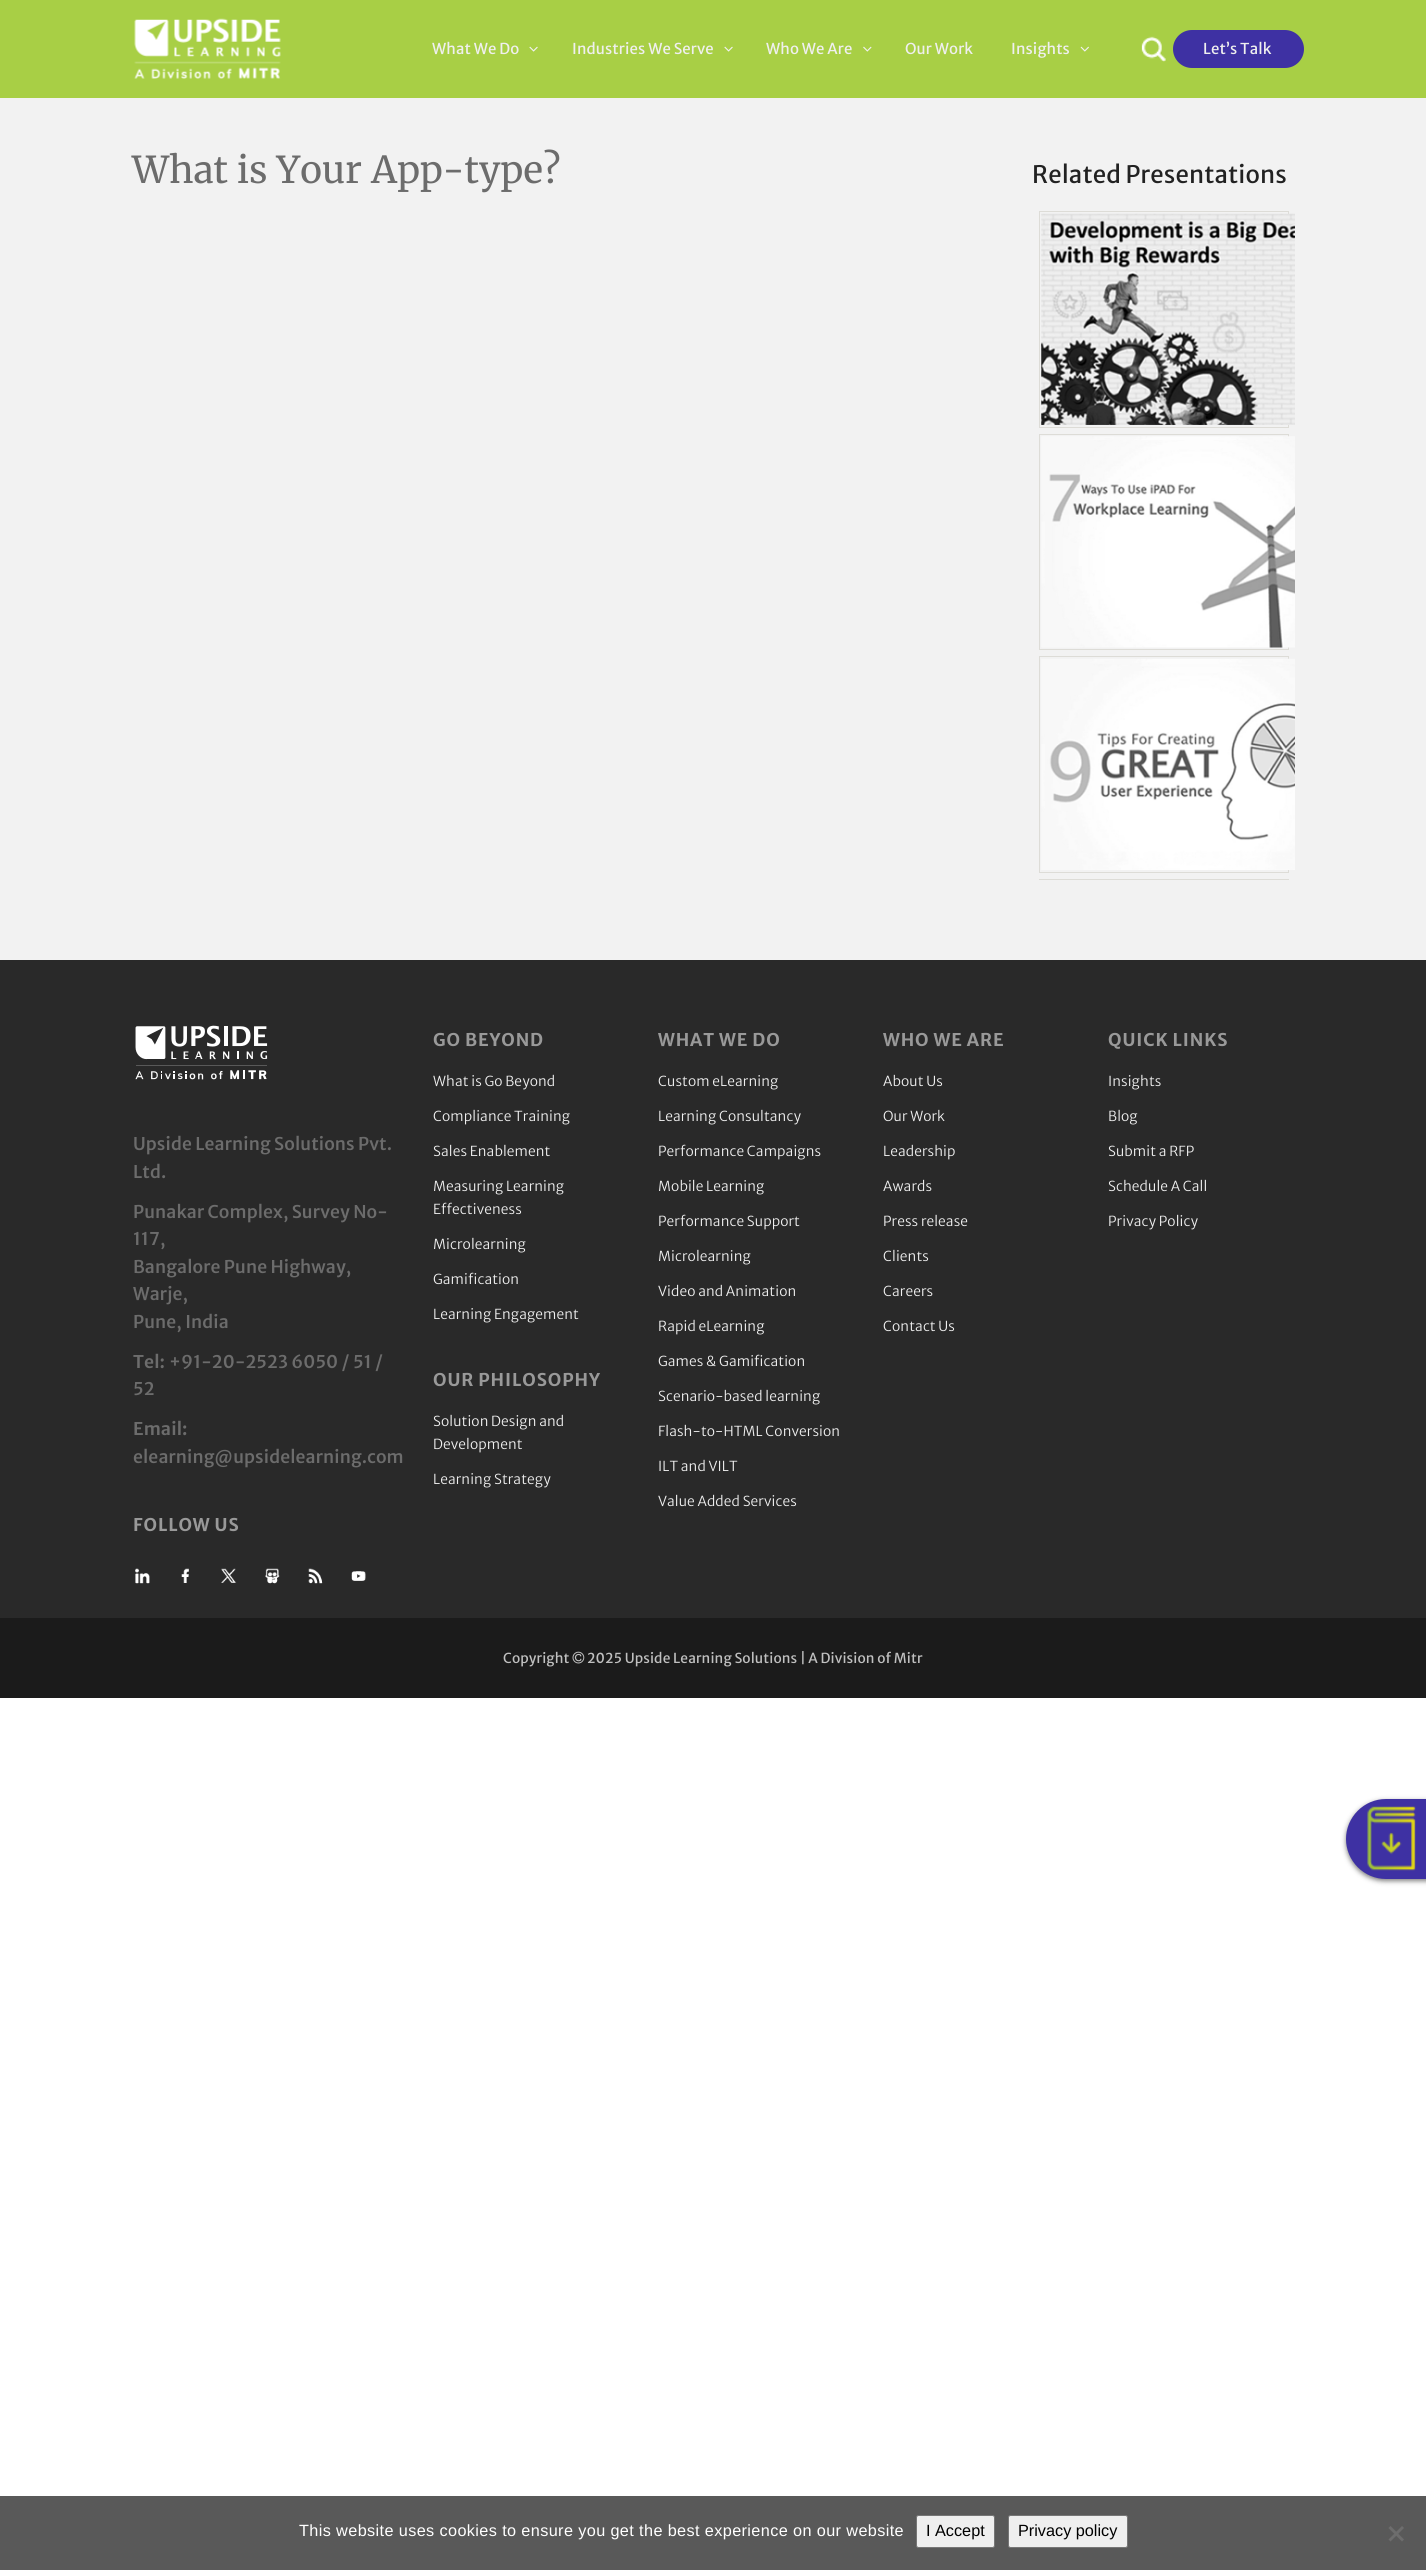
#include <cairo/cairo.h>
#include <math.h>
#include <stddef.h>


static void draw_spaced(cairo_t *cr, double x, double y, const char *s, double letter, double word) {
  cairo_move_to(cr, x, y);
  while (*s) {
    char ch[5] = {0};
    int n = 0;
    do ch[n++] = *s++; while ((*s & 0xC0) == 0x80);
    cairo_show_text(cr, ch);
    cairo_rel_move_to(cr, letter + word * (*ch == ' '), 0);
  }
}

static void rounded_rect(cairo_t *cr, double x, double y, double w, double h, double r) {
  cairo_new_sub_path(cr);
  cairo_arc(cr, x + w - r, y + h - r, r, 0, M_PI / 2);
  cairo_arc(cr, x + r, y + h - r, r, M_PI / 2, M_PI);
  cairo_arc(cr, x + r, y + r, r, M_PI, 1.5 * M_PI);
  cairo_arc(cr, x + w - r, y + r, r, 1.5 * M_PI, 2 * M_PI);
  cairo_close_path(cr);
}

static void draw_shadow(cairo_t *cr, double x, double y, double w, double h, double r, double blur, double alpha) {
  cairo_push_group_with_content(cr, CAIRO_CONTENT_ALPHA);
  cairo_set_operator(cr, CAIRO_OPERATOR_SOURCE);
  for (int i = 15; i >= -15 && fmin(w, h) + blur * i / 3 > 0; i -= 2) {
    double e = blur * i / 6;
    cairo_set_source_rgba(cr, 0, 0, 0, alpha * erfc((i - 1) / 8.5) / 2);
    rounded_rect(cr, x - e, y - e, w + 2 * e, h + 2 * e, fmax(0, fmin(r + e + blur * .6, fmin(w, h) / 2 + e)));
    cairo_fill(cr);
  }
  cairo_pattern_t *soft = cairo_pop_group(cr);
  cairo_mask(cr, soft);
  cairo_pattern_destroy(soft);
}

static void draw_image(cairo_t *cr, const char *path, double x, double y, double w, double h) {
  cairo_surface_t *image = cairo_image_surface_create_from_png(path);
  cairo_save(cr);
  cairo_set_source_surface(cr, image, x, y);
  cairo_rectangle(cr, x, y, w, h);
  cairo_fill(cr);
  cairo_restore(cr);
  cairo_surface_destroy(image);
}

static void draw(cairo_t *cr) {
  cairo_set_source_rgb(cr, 1, 1, 1);
  cairo_paint(cr);
  cairo_set_source_rgb(cr, 168 / 255.0, 207 / 255.0, 69 / 255.0);
  cairo_rectangle(cr, 0, 0, 1426, 98);
  cairo_fill(cr);
  draw_image(cr, "images/1.png", 134, 18, 147, 61);
  draw_image(cr, "images/2.png", 529, 46, 9, 6);
  draw_image(cr, "images/2.png", 724, 46, 9, 6);
  draw_image(cr, "images/3.png", 863, 46, 9, 6);
  draw_image(cr, "images/4.png", 1080, 46, 9, 6);
  draw_image(cr, "images/5.png", 1141, 36, 25, 26);
  cairo_set_source_rgb(cr, 62 / 255.0, 49 / 255.0, 163 / 255.0);
  rounded_rect(cr, 1173, 30, 131, 38, 19);
  cairo_fill(cr);
  cairo_set_source_rgb(cr, 242 / 255.0, 242 / 255.0, 242 / 255.0);
  cairo_rectangle(cr, 0, 98, 1426, 862);
  cairo_fill(cr);
  cairo_rectangle(cr, 1039.5, 211.5, 249, 216);
  cairo_set_source_rgb(cr, 221 / 255.0, 220 / 255.0, 215 / 255.0);
  cairo_set_line_width(cr, 1);
  cairo_stroke(cr);
  draw_image(cr, "images/6.png", 1041, 213, 254, 212);
  cairo_rectangle(cr, 1039.5, 434.5, 249, 215);
  cairo_stroke(cr);
  draw_image(cr, "images/7.png", 1041, 436, 254, 212);
  cairo_rectangle(cr, 1039.5, 656.5, 249, 216);
  cairo_stroke(cr);
  draw_image(cr, "images/8.png", 1041, 658, 254, 212);
  cairo_save(cr);
  cairo_rectangle(cr, 1033, 205, 262, 675);
  cairo_clip(cr);
  cairo_rectangle(cr, 1039.5, 879.5, 249, 215);
  cairo_stroke(cr);
  cairo_restore(cr);
  cairo_set_source_rgb(cr, 41 / 255.0, 41 / 255.0, 41 / 255.0);
  cairo_rectangle(cr, 0, 960, 1426, 658);
  cairo_fill(cr);
  draw_image(cr, "images/9.png", 135, 1025, 133, 55);
  draw_image(cr, "images/10.png", 135, 1568, 15, 16);
  draw_image(cr, "images/11.png", 181, 1568, 8, 15);
  draw_image(cr, "images/12.png", 221, 1568, 16, 15);
  draw_image(cr, "images/13.png", 265, 1568, 15, 16);
  draw_image(cr, "images/14.png", 308, 1568, 15, 16);
  draw_image(cr, "images/15.png", 351, 1571, 15, 10);
  cairo_set_source_rgb(cr, 27 / 255.0, 27 / 255.0, 27 / 255.0);
  cairo_rectangle(cr, 0, 1618, 1426, 80);
  cairo_fill(cr);
  draw_image(cr, "images/16.png", 572, 1651, 13, 13);
  cairo_set_source_rgb(cr, 125 / 255.0, 125 / 255.0, 125 / 255.0);
  draw_shadow(cr, 1346, 1801, 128, 80, 40, 2.5, 1);
  cairo_set_source_rgb(cr, 62 / 255.0, 49 / 255.0, 163 / 255.0);
  cairo_new_path(cr);
  cairo_move_to(cr, 1386, 1799);
  cairo_line_to(cr, 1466, 1799);
  cairo_line_to(cr, 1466, 1879);
  cairo_line_to(cr, 1386, 1879);
  cairo_curve_to(cr, 1364, 1879, 1346, 1861, 1346, 1839);
  cairo_curve_to(cr, 1346, 1817, 1364, 1799, 1386, 1799);
  cairo_close_path(cr);
  cairo_fill(cr);
  draw_image(cr, "images/17.png", 1367, 1806, 49, 65);
  cairo_set_source_rgb(cr, 89 / 255.0, 89 / 255.0, 89 / 255.0);
  cairo_rectangle(cr, 0, 2496, 1426, 74);
  cairo_fill(cr);
  cairo_set_source_rgb(cr, 239 / 255.0, 239 / 255.0, 239 / 255.0);
  rounded_rect(cr, 916.5, 2515.5, 78, 32, 2);
  cairo_fill_preserve(cr);
  cairo_set_source_rgb(cr, 118 / 255.0, 118 / 255.0, 118 / 255.0);
  cairo_stroke(cr);
  cairo_set_source_rgb(cr, 239 / 255.0, 239 / 255.0, 239 / 255.0);
  rounded_rect(cr, 1008.5, 2515.5, 119, 32, 2);
  cairo_fill_preserve(cr);
  cairo_set_source_rgb(cr, 118 / 255.0, 118 / 255.0, 118 / 255.0);
  cairo_stroke(cr);
  cairo_set_source_rgb(cr, 109 / 255.0, 109 / 255.0, 109 / 255.0);
  cairo_new_path(cr);
  cairo_move_to(cr, 1402, 2526);
  cairo_line_to(cr, 1404, 2528);
  cairo_line_to(cr, 1390.5, 2541.5);
  cairo_line_to(cr, 1388.5, 2539.5);
  cairo_close_path(cr);
  cairo_fill(cr);
  cairo_new_path(cr);
  cairo_move_to(cr, 1388.5, 2528);
  cairo_line_to(cr, 1390.5, 2526);
  cairo_line_to(cr, 1404, 2539.5);
  cairo_line_to(cr, 1402, 2541.5);
  cairo_close_path(cr);
  cairo_fill(cr);
  cairo_select_font_face(cr, "Merriweather Sans", CAIRO_FONT_SLANT_NORMAL, CAIRO_FONT_WEIGHT_NORMAL);
  cairo_set_font_size(cr, 15);
  cairo_set_source_rgb(cr, 239 / 255.0, 239 / 255.0, 239 / 255.0);
  draw_spaced(cr, 432, 54, "What We Do", 0.12, 0);
  draw_spaced(cr, 572, 54, "Industries We Serve", 0.12, 0);
  draw_spaced(cr, 766, 54, "Who We Are", 0.12, 0);
  draw_spaced(cr, 905, 54, "Our Work", 0.12, 0);
  draw_spaced(cr, 1011, 54, "Insights", 0.12, 0);
  draw_spaced(cr, 1203, 54, "Let’s Talk", 0.12, 0);
  cairo_select_font_face(cr, "Merriweather", CAIRO_FONT_SLANT_NORMAL, CAIRO_FONT_WEIGHT_NORMAL);
  cairo_set_font_size(cr, 37);
  cairo_set_source_rgb(cr, 108 / 255.0, 108 / 255.0, 108 / 255.0);
  draw_spaced(cr, 132, 183, "What is Your App-type?", 0.12, 0);
  cairo_select_font_face(cr, "Merriweather Sans", CAIRO_FONT_SLANT_NORMAL, CAIRO_FONT_WEIGHT_NORMAL);
  cairo_set_font_size(cr, 24);
  cairo_set_source_rgb(cr, 34 / 255.0, 34 / 255.0, 34 / 255.0);
  draw_spaced(cr, 1032, 183, "Related Presentations", 0.12, 0);
  cairo_select_font_face(cr, "Merriweather Sans Medium", CAIRO_FONT_SLANT_NORMAL, CAIRO_FONT_WEIGHT_NORMAL);
  cairo_set_font_size(cr, 17.5);
  cairo_set_source_rgb(cr, 108 / 255.0, 108 / 255.0, 108 / 255.0);
  draw_spaced(cr, 133, 1150, "Upside Learning Solutions Pvt.", 0.12, 0);
  draw_spaced(cr, 133, 1178, "Ltd.", 0.12, 0);
  draw_spaced(cr, 133, 1218, "Punakar Complex, Survey No-", 0.12, 0);
  draw_spaced(cr, 133, 1245, "117,", 0.12, 0);
  draw_spaced(cr, 133, 1273, "Bangalore Pune Highway,", 0.12, 0);
  draw_spaced(cr, 133, 1300, "Warje,", 0.12, 0);
  draw_spaced(cr, 133, 1328, "Pune, India", 0.12, 0);
  cairo_select_font_face(cr, "Merriweather Sans SemiBold", CAIRO_FONT_SLANT_NORMAL, CAIRO_FONT_WEIGHT_NORMAL);
  draw_spaced(cr, 133, 1368, "Tel:", 0.12, 0);
  cairo_select_font_face(cr, "Merriweather Sans Medium", CAIRO_FONT_SLANT_NORMAL, CAIRO_FONT_WEIGHT_NORMAL);
  draw_spaced(cr, 169, 1368, "+91-20-2523 6050 / 51 /", 0.12, 0);
  draw_spaced(cr, 133, 1395, "52", 0.12, 0);
  cairo_select_font_face(cr, "Merriweather Sans SemiBold", CAIRO_FONT_SLANT_NORMAL, CAIRO_FONT_WEIGHT_NORMAL);
  draw_spaced(cr, 133, 1435, "Email:", 0.12, 0);
  cairo_select_font_face(cr, "Merriweather Sans Medium", CAIRO_FONT_SLANT_NORMAL, CAIRO_FONT_WEIGHT_NORMAL);
  draw_spaced(cr, 133, 1463, "elearning@upsidelearning.com", 0.12, 0);
  cairo_select_font_face(cr, "Merriweather Sans", CAIRO_FONT_SLANT_NORMAL, CAIRO_FONT_WEIGHT_BOLD);
  cairo_set_source_rgb(cr, 153 / 255.0, 153 / 255.0, 153 / 255.0);
  draw_spaced(cr, 133, 1531, "FOLLOW US", 0.9, 0);
  draw_spaced(cr, 433, 1046, "GO BEYOND", 0.9, 0);
  cairo_select_font_face(cr, "Merriweather Sans Light", CAIRO_FONT_SLANT_NORMAL, CAIRO_FONT_WEIGHT_NORMAL);
  cairo_set_font_size(cr, 13.75);
  cairo_set_source_rgb(cr, 239 / 255.0, 239 / 255.0, 239 / 255.0);
  draw_spaced(cr, 433, 1086, "What is Go Beyond", 0.12, 0);
  draw_spaced(cr, 433, 1121, "Compliance Training", 0.12, 0);
  draw_spaced(cr, 433, 1156, "Sales Enablement", 0.12, 0);
  draw_spaced(cr, 433, 1191, "Measuring Learning", 0.12, 0);
  draw_spaced(cr, 433, 1214, "Effectiveness", 0.12, 0);
  draw_spaced(cr, 433, 1249, "Microlearning", 0.12, 0);
  draw_spaced(cr, 433, 1284, "Gamification", 0.12, 0);
  draw_spaced(cr, 433, 1319, "Learning Engagement", 0.12, 0);
  cairo_select_font_face(cr, "Merriweather Sans", CAIRO_FONT_SLANT_NORMAL, CAIRO_FONT_WEIGHT_BOLD);
  cairo_set_font_size(cr, 17.5);
  cairo_set_source_rgb(cr, 153 / 255.0, 153 / 255.0, 153 / 255.0);
  draw_spaced(cr, 433, 1386, "OUR PHILOSOPHY", 0.9, 0);
  cairo_select_font_face(cr, "Merriweather Sans Light", CAIRO_FONT_SLANT_NORMAL, CAIRO_FONT_WEIGHT_NORMAL);
  cairo_set_font_size(cr, 13.75);
  cairo_set_source_rgb(cr, 239 / 255.0, 239 / 255.0, 239 / 255.0);
  draw_spaced(cr, 433, 1426, "Solution Design and", 0.12, 0);
  draw_spaced(cr, 433, 1449, "Development", 0.12, 0);
  draw_spaced(cr, 433, 1484, "Learning Strategy", 0.12, 0);
  cairo_select_font_face(cr, "Merriweather Sans", CAIRO_FONT_SLANT_NORMAL, CAIRO_FONT_WEIGHT_BOLD);
  cairo_set_font_size(cr, 17.5);
  cairo_set_source_rgb(cr, 153 / 255.0, 153 / 255.0, 153 / 255.0);
  draw_spaced(cr, 658, 1046, "WHAT WE DO", 0.9, 0);
  cairo_select_font_face(cr, "Merriweather Sans Light", CAIRO_FONT_SLANT_NORMAL, CAIRO_FONT_WEIGHT_NORMAL);
  cairo_set_font_size(cr, 13.75);
  cairo_set_source_rgb(cr, 239 / 255.0, 239 / 255.0, 239 / 255.0);
  draw_spaced(cr, 658, 1086, "Custom eLearning", 0.12, 0);
  draw_spaced(cr, 658, 1121, "Learning Consultancy", 0.12, 0);
  draw_spaced(cr, 658, 1156, "Performance Campaigns", 0.12, 0);
  draw_spaced(cr, 658, 1191, "Mobile Learning", 0.12, 0);
  draw_spaced(cr, 658, 1226, "Performance Support", 0.12, 0);
  draw_spaced(cr, 658, 1261, "Microlearning", 0.12, 0);
  draw_spaced(cr, 658, 1296, "Video and Animation", 0.12, 0);
  draw_spaced(cr, 658, 1331, "Rapid eLearning", 0.12, 0);
  draw_spaced(cr, 658, 1366, "Games & Gamification", 0.12, 0);
  draw_spaced(cr, 658, 1401, "Scenario-based learning", 0.12, 0);
  draw_spaced(cr, 658, 1436, "Flash-to-HTML Conversion", 0.12, 0);
  draw_spaced(cr, 658, 1471, "ILT and VILT", 0.12, 0);
  draw_spaced(cr, 658, 1506, "Value Added Services", 0.12, 0);
  cairo_select_font_face(cr, "Merriweather Sans", CAIRO_FONT_SLANT_NORMAL, CAIRO_FONT_WEIGHT_BOLD);
  cairo_set_font_size(cr, 17.5);
  cairo_set_source_rgb(cr, 153 / 255.0, 153 / 255.0, 153 / 255.0);
  draw_spaced(cr, 883, 1046, "WHO WE ARE", 0.9, 0);
  cairo_select_font_face(cr, "Merriweather Sans Light", CAIRO_FONT_SLANT_NORMAL, CAIRO_FONT_WEIGHT_NORMAL);
  cairo_set_font_size(cr, 13.75);
  cairo_set_source_rgb(cr, 239 / 255.0, 239 / 255.0, 239 / 255.0);
  draw_spaced(cr, 883, 1086, "About Us", 0.12, 0);
  draw_spaced(cr, 883, 1121, "Our Work", 0.12, 0);
  draw_spaced(cr, 883, 1156, "Leadership", 0.12, 0);
  draw_spaced(cr, 883, 1191, "Awards", 0.12, 0);
  draw_spaced(cr, 883, 1226, "Press release", 0.12, 0);
  draw_spaced(cr, 883, 1261, "Clients", 0.12, 0);
  draw_spaced(cr, 883, 1296, "Careers", 0.12, 0);
  draw_spaced(cr, 883, 1331, "Contact Us", 0.12, 0);
  cairo_select_font_face(cr, "Merriweather Sans", CAIRO_FONT_SLANT_NORMAL, CAIRO_FONT_WEIGHT_BOLD);
  cairo_set_font_size(cr, 17.5);
  cairo_set_source_rgb(cr, 153 / 255.0, 153 / 255.0, 153 / 255.0);
  draw_spaced(cr, 1108, 1046, "QUICK LINKS", 0.9, 0);
  cairo_select_font_face(cr, "Merriweather Sans Light", CAIRO_FONT_SLANT_NORMAL, CAIRO_FONT_WEIGHT_NORMAL);
  cairo_set_font_size(cr, 13.75);
  cairo_set_source_rgb(cr, 239 / 255.0, 239 / 255.0, 239 / 255.0);
  draw_spaced(cr, 1108, 1086, "Insights", 0.12, 0);
  draw_spaced(cr, 1108, 1121, "Blog", 0.12, 0);
  draw_spaced(cr, 1108, 1156, "Submit a RFP", 0.12, 0);
  draw_spaced(cr, 1108, 1191, "Schedule A Call", 0.12, 0);
  draw_spaced(cr, 1108, 1226, "Privacy Policy", 0.12, 0);
  cairo_select_font_face(cr, "Merriweather Sans", CAIRO_FONT_SLANT_NORMAL, CAIRO_FONT_WEIGHT_NORMAL);
  cairo_set_source_rgb(cr, 192 / 255.0, 192 / 255.0, 192 / 255.0);
  draw_spaced(cr, 503, 1663, "Copyright", 0.12, 0);
  draw_spaced(cr, 587, 1663, "2025 Upside Learning Solutions | A Division of Mitr", 0.12, 0);
  cairo_select_font_face(cr, "Liberation Sans", CAIRO_FONT_SLANT_NORMAL, CAIRO_FONT_WEIGHT_NORMAL);
  cairo_set_font_size(cr, 16.25);
  cairo_set_source_rgb(cr, 1, 1, 1);
  draw_spaced(cr, 299, 2536, "This website uses cookies to ensure you get the best experience on our website", 0.38, 0);
  cairo_set_source_rgb(cr, 0, 0, 0);
  cairo_move_to(cr, 926, 2536);
  cairo_show_text(cr, "I Accept");
  cairo_move_to(cr, 1018, 2536);
  cairo_show_text(cr, "Privacy policy");
}

int main(void) {
  cairo_surface_t *surface = cairo_image_surface_create(CAIRO_FORMAT_RGB24, 1426, 2570);
  cairo_t *cr = cairo_create(surface);
  cairo_font_options_t *options = cairo_font_options_create();
  cairo_font_options_set_hint_metrics(options, CAIRO_HINT_METRICS_OFF);
  cairo_font_options_set_hint_style(options, CAIRO_HINT_STYLE_NONE);
  cairo_set_font_options(cr, options);
  cairo_set_miter_limit(cr, 4);
  draw(cr);
  cairo_surface_write_to_png(surface, "out.png");
  cairo_font_options_destroy(options);
  cairo_destroy(cr);
  cairo_surface_destroy(surface);
  return 0;
}
